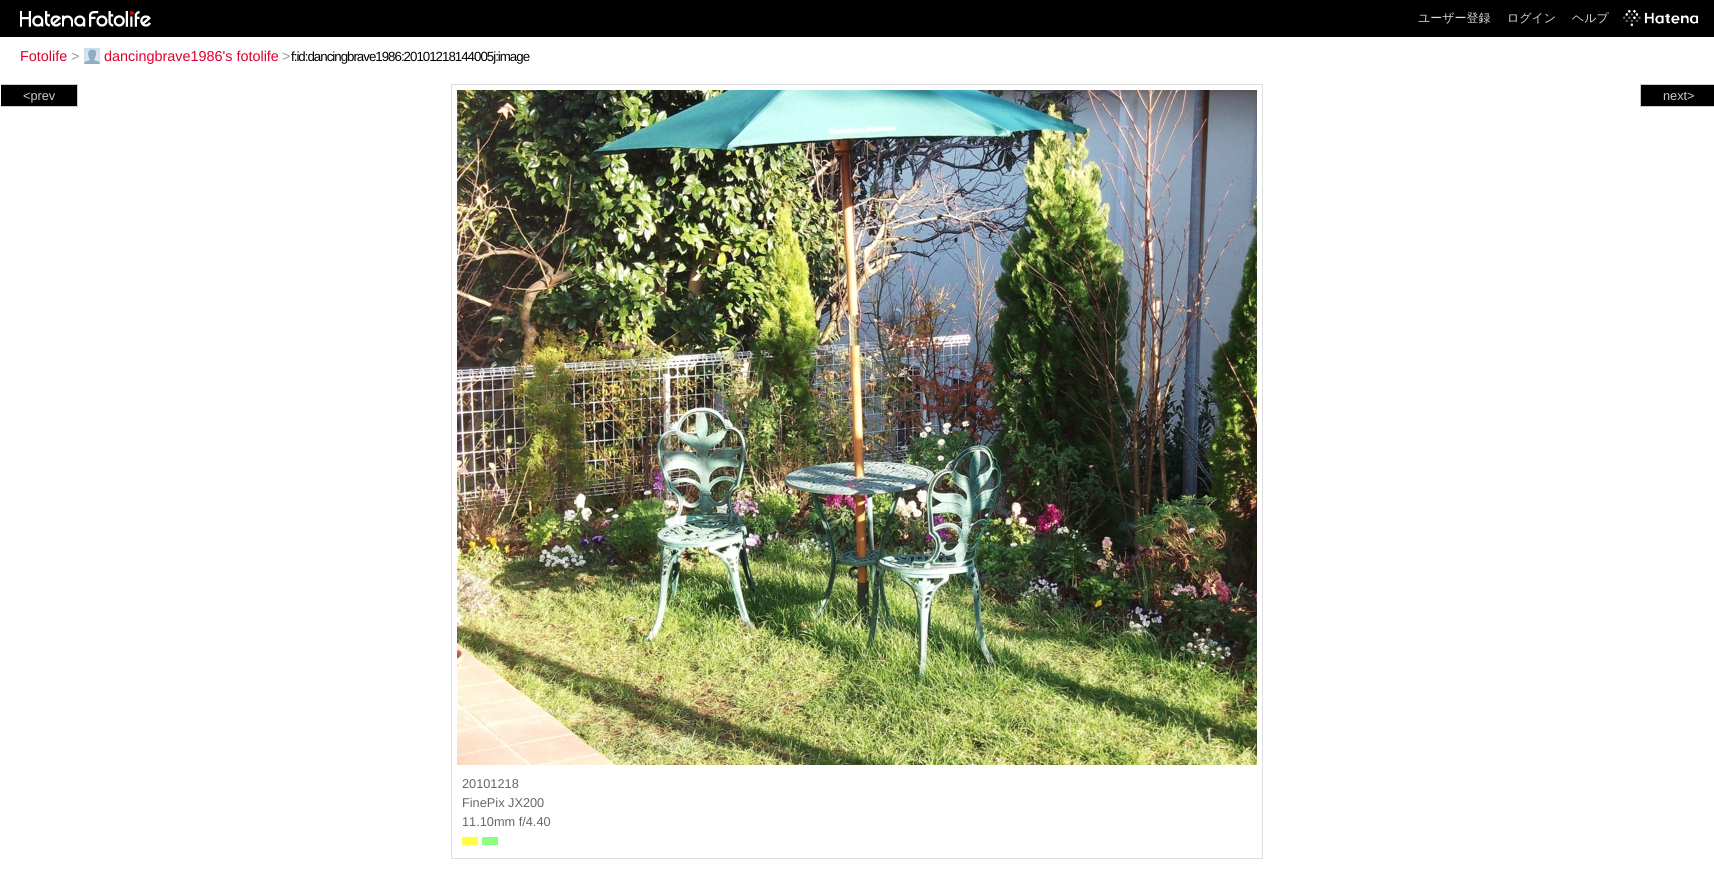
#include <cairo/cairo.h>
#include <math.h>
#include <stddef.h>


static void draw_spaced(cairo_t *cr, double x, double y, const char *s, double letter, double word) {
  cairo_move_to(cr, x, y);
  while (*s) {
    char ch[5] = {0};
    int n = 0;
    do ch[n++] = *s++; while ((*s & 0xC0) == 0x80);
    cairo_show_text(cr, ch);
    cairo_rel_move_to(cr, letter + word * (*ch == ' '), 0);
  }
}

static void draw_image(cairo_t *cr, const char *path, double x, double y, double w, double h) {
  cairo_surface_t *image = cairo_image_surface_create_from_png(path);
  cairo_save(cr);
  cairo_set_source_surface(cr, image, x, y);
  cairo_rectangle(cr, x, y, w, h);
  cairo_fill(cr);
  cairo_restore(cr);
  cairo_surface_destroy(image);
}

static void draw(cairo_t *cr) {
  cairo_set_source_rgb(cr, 1, 1, 1);
  cairo_paint(cr);
  cairo_set_source_rgb(cr, 0, 0, 0);
  cairo_rectangle(cr, 0, 0, 1714, 37);
  cairo_fill(cr);
  draw_image(cr, "images/1.png", 20, 11, 66, 16);
  draw_image(cr, "images/2.png", 89, 11, 62, 16);
  draw_image(cr, "images/3.png", 1623, 10, 75, 16);
  draw_image(cr, "images/4.png", 84, 48, 16, 16);
  cairo_rectangle(cr, 1, 85, 76, 21);
  cairo_fill(cr);
  cairo_set_source_rgb(cr, 204 / 255.0, 204 / 255.0, 204 / 255.0);
  cairo_rectangle(cr, 1, 84, 77, 1);
  cairo_fill(cr);
  cairo_rectangle(cr, 77, 84, 1, 23);
  cairo_fill(cr);
  cairo_rectangle(cr, 1, 106, 77, 1);
  cairo_fill(cr);
  cairo_set_source_rgb(cr, 0, 0, 0);
  cairo_rectangle(cr, 1641, 85, 73, 21);
  cairo_fill(cr);
  cairo_set_source_rgb(cr, 204 / 255.0, 204 / 255.0, 204 / 255.0);
  cairo_rectangle(cr, 1640, 84, 74, 1);
  cairo_fill(cr);
  cairo_rectangle(cr, 1640, 106, 74, 1);
  cairo_fill(cr);
  cairo_rectangle(cr, 1640, 84, 1, 23);
  cairo_fill(cr);
  cairo_rectangle(cr, 451.5, 84.5, 811, 774);
  cairo_set_source_rgb(cr, 222 / 255.0, 222 / 255.0, 222 / 255.0);
  cairo_set_line_width(cr, 1);
  cairo_stroke(cr);
  draw_image(cr, "images/5.png", 457, 90, 800, 675);
  cairo_set_source_rgb(cr, 1, 1, 64 / 255.0);
  cairo_rectangle(cr, 462, 837, 16, 8);
  cairo_fill(cr);
  cairo_set_source_rgb(cr, 138 / 255.0, 1, 128 / 255.0);
  cairo_rectangle(cr, 482, 837, 16, 8);
  cairo_fill(cr);
  cairo_select_font_face(cr, "WenQuanYi Zen Hei Medium", CAIRO_FONT_SLANT_NORMAL, CAIRO_FONT_WEIGHT_NORMAL);
  cairo_set_font_size(cr, 12);
  cairo_set_source_rgb(cr, 221 / 255.0, 221 / 255.0, 221 / 255.0);
  cairo_move_to(cr, 1418, 22);
  cairo_show_text(cr, "ユーザー登録");
  cairo_move_to(cr, 1507, 22);
  cairo_show_text(cr, "ログイン");
  cairo_move_to(cr, 1572, 22);
  cairo_show_text(cr, "ヘルプ");
  cairo_select_font_face(cr, "Liberation Sans", CAIRO_FONT_SLANT_NORMAL, CAIRO_FONT_WEIGHT_NORMAL);
  cairo_set_font_size(cr, 14.4);
  cairo_set_source_rgb(cr, 222 / 255.0, 0, 47 / 255.0);
  cairo_move_to(cr, 20, 61);
  cairo_show_text(cr, "Fotolife");
  cairo_set_source_rgb(cr, 153 / 255.0, 153 / 255.0, 153 / 255.0);
  cairo_move_to(cr, 71, 61);
  cairo_show_text(cr, ">");
  cairo_set_source_rgb(cr, 222 / 255.0, 0, 47 / 255.0);
  cairo_move_to(cr, 104, 61);
  cairo_show_text(cr, "dancingbrave1986's fotolife");
  cairo_set_source_rgb(cr, 153 / 255.0, 153 / 255.0, 153 / 255.0);
  cairo_move_to(cr, 282, 61);
  cairo_show_text(cr, ">");
  cairo_set_font_size(cr, 13.3);
  cairo_set_source_rgb(cr, 0, 0, 0);
  draw_spaced(cr, 291, 61, "f:id:dancingbrave1986:20101218144005j:image", -1, 0);
  cairo_set_font_size(cr, 12.75);
  cairo_set_source_rgb(cr, 204 / 255.0, 204 / 255.0, 204 / 255.0);
  cairo_move_to(cr, 23, 100);
  cairo_show_text(cr, "<prev");
  cairo_move_to(cr, 1663, 100);
  cairo_show_text(cr, "next>");
  cairo_set_source_rgb(cr, 102 / 255.0, 102 / 255.0, 102 / 255.0);
  cairo_move_to(cr, 462, 788);
  cairo_show_text(cr, "20101218");
  cairo_move_to(cr, 462, 807);
  cairo_show_text(cr, "FinePix JX200");
  cairo_move_to(cr, 462, 826);
  cairo_show_text(cr, "11.10mm f/4.40");
}

int main(void) {
  cairo_surface_t *surface = cairo_image_surface_create(CAIRO_FORMAT_RGB24, 1714, 889);
  cairo_t *cr = cairo_create(surface);
  cairo_font_options_t *options = cairo_font_options_create();
  cairo_font_options_set_hint_metrics(options, CAIRO_HINT_METRICS_OFF);
  cairo_font_options_set_hint_style(options, CAIRO_HINT_STYLE_NONE);
  cairo_set_font_options(cr, options);
  cairo_set_miter_limit(cr, 4);
  draw(cr);
  cairo_surface_write_to_png(surface, "out.png");
  cairo_font_options_destroy(options);
  cairo_destroy(cr);
  cairo_surface_destroy(surface);
  return 0;
}
